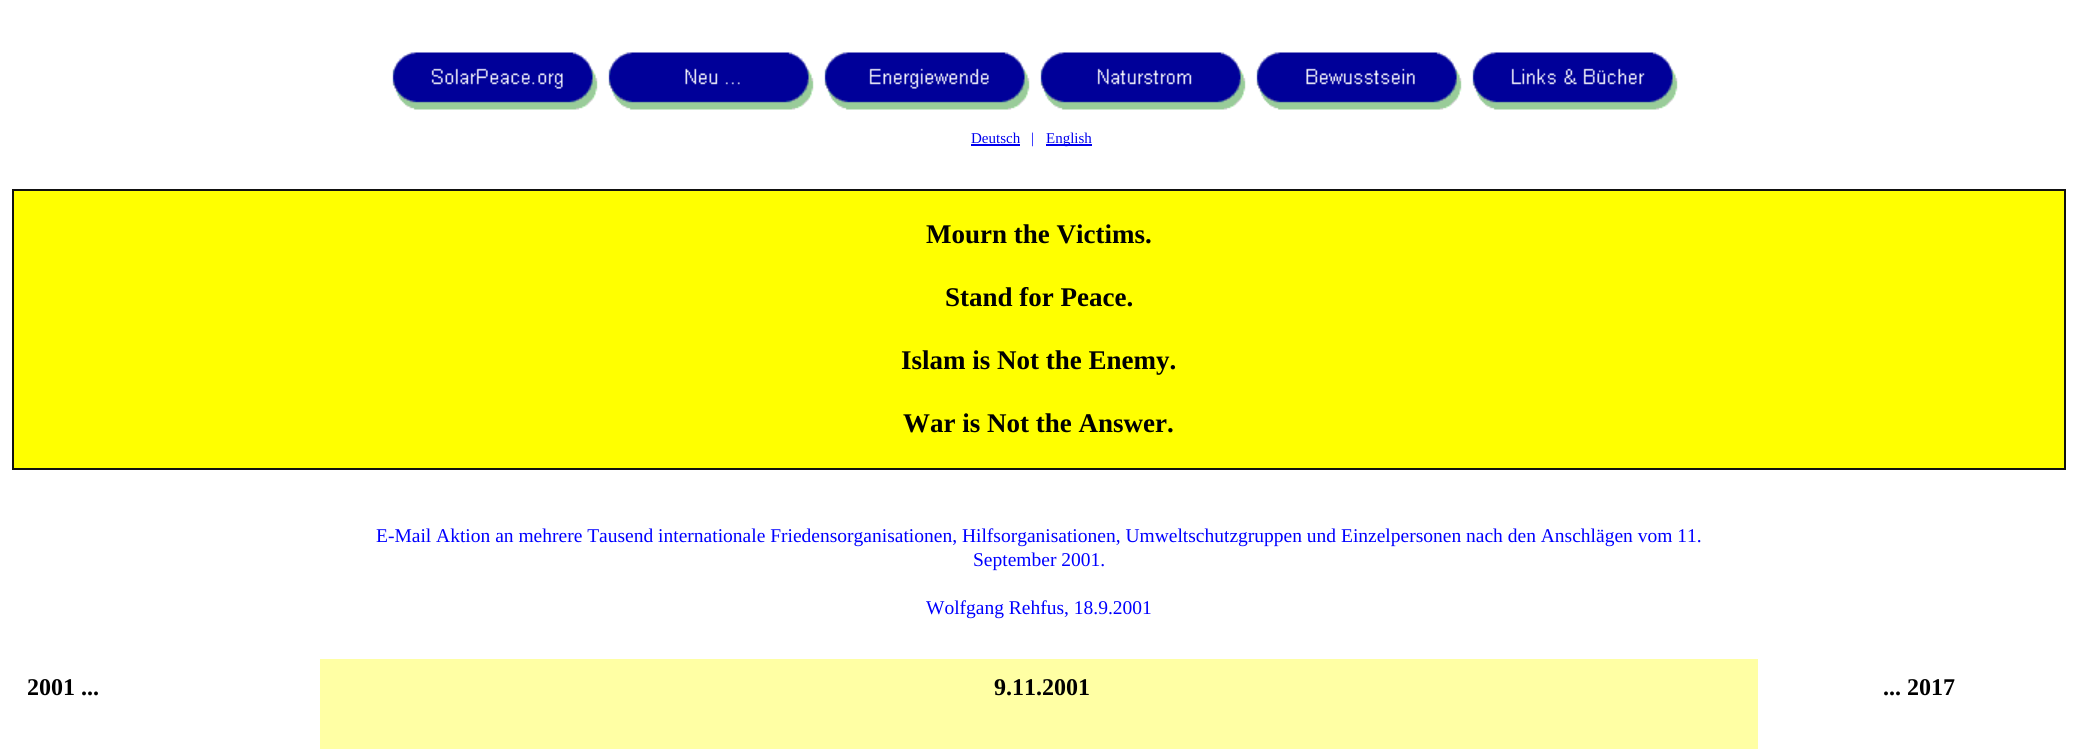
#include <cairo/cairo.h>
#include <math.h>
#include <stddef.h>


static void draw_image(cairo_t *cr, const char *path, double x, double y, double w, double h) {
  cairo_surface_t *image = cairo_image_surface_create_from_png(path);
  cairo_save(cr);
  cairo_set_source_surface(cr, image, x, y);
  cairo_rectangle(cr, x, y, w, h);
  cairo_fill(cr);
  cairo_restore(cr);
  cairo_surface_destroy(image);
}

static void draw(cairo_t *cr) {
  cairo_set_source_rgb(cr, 1, 1, 1);
  cairo_paint(cr);
  draw_image(cr, "images/1.png", 392, 52, 206, 58);
  draw_image(cr, "images/2.png", 608, 52, 206, 58);
  draw_image(cr, "images/3.png", 824, 52, 206, 58);
  draw_image(cr, "images/4.png", 1040, 52, 206, 58);
  draw_image(cr, "images/5.png", 1256, 52, 206, 58);
  draw_image(cr, "images/6.png", 1472, 52, 206, 58);
  cairo_set_source_rgb(cr, 0, 0, 238 / 255.0);
  cairo_rectangle(cr, 971, 144, 49, 2);
  cairo_fill(cr);
  cairo_rectangle(cr, 1046, 144, 46, 2);
  cairo_fill(cr);
  cairo_set_source_rgb(cr, 17 / 255.0, 17 / 255.0, 17 / 255.0);
  cairo_rectangle(cr, 12, 189, 2054, 2);
  cairo_fill(cr);
  cairo_rectangle(cr, 2064, 189, 2, 281);
  cairo_fill(cr);
  cairo_rectangle(cr, 12, 468, 2054, 2);
  cairo_fill(cr);
  cairo_rectangle(cr, 12, 189, 2, 281);
  cairo_fill(cr);
  cairo_set_source_rgb(cr, 1, 1, 0);
  cairo_rectangle(cr, 14, 191, 2050, 277);
  cairo_fill(cr);
  cairo_set_source_rgb(cr, 1, 1, 164 / 255.0);
  cairo_rectangle(cr, 320, 659, 1438, 90);
  cairo_fill(cr);
  cairo_select_font_face(cr, "Liberation Serif", CAIRO_FONT_SLANT_NORMAL, CAIRO_FONT_WEIGHT_NORMAL);
  cairo_set_font_size(cr, 15);
  cairo_set_source_rgb(cr, 0, 0, 238 / 255.0);
  cairo_move_to(cr, 971, 143);
  cairo_show_text(cr, "Deutsch");
  cairo_set_source_rgb(cr, 0, 0, 1);
  cairo_move_to(cr, 1031, 143);
  cairo_show_text(cr, "|");
  cairo_set_source_rgb(cr, 0, 0, 238 / 255.0);
  cairo_move_to(cr, 1046, 143);
  cairo_show_text(cr, "English");
  cairo_select_font_face(cr, "Liberation Serif", CAIRO_FONT_SLANT_NORMAL, CAIRO_FONT_WEIGHT_BOLD);
  cairo_set_font_size(cr, 27);
  cairo_set_source_rgb(cr, 0, 0, 0);
  cairo_move_to(cr, 926, 243);
  cairo_show_text(cr, "Mourn the Victims.");
  cairo_move_to(cr, 945, 306);
  cairo_show_text(cr, "Stand for Peace.");
  cairo_move_to(cr, 901, 369);
  cairo_show_text(cr, "Islam is Not the Enemy.");
  cairo_move_to(cr, 903, 432);
  cairo_show_text(cr, "War is Not the Answer.");
  cairo_select_font_face(cr, "Liberation Serif", CAIRO_FONT_SLANT_NORMAL, CAIRO_FONT_WEIGHT_NORMAL);
  cairo_set_font_size(cr, 19.5);
  cairo_set_source_rgb(cr, 0, 0, 1);
  cairo_move_to(cr, 376, 542);
  cairo_show_text(cr, "E-Mail Aktion an mehrere Tausend internationale Friedensorganisationen, Hilfsorganisationen, Umweltschutzgruppen und Einzelpersonen nach den Anschlägen vom 11.");
  cairo_move_to(cr, 973, 566);
  cairo_show_text(cr, "September 2001.");
  cairo_move_to(cr, 926, 614);
  cairo_show_text(cr, "Wolfgang Rehfus, 18.9.2001");
  cairo_select_font_face(cr, "Liberation Serif", CAIRO_FONT_SLANT_NORMAL, CAIRO_FONT_WEIGHT_BOLD);
  cairo_set_font_size(cr, 24);
  cairo_set_source_rgb(cr, 0, 0, 0);
  cairo_move_to(cr, 27, 695);
  cairo_show_text(cr, "2001 ...");
  cairo_move_to(cr, 994, 695);
  cairo_show_text(cr, "9.11.2001");
  cairo_move_to(cr, 1883, 695);
  cairo_show_text(cr, "... 2017");
}

int main(void) {
  cairo_surface_t *surface = cairo_image_surface_create(CAIRO_FORMAT_RGB24, 2077, 749);
  cairo_t *cr = cairo_create(surface);
  cairo_font_options_t *options = cairo_font_options_create();
  cairo_font_options_set_hint_metrics(options, CAIRO_HINT_METRICS_OFF);
  cairo_font_options_set_hint_style(options, CAIRO_HINT_STYLE_NONE);
  cairo_set_font_options(cr, options);
  cairo_set_miter_limit(cr, 4);
  draw(cr);
  cairo_surface_write_to_png(surface, "out.png");
  cairo_font_options_destroy(options);
  cairo_destroy(cr);
  cairo_surface_destroy(surface);
  return 0;
}
